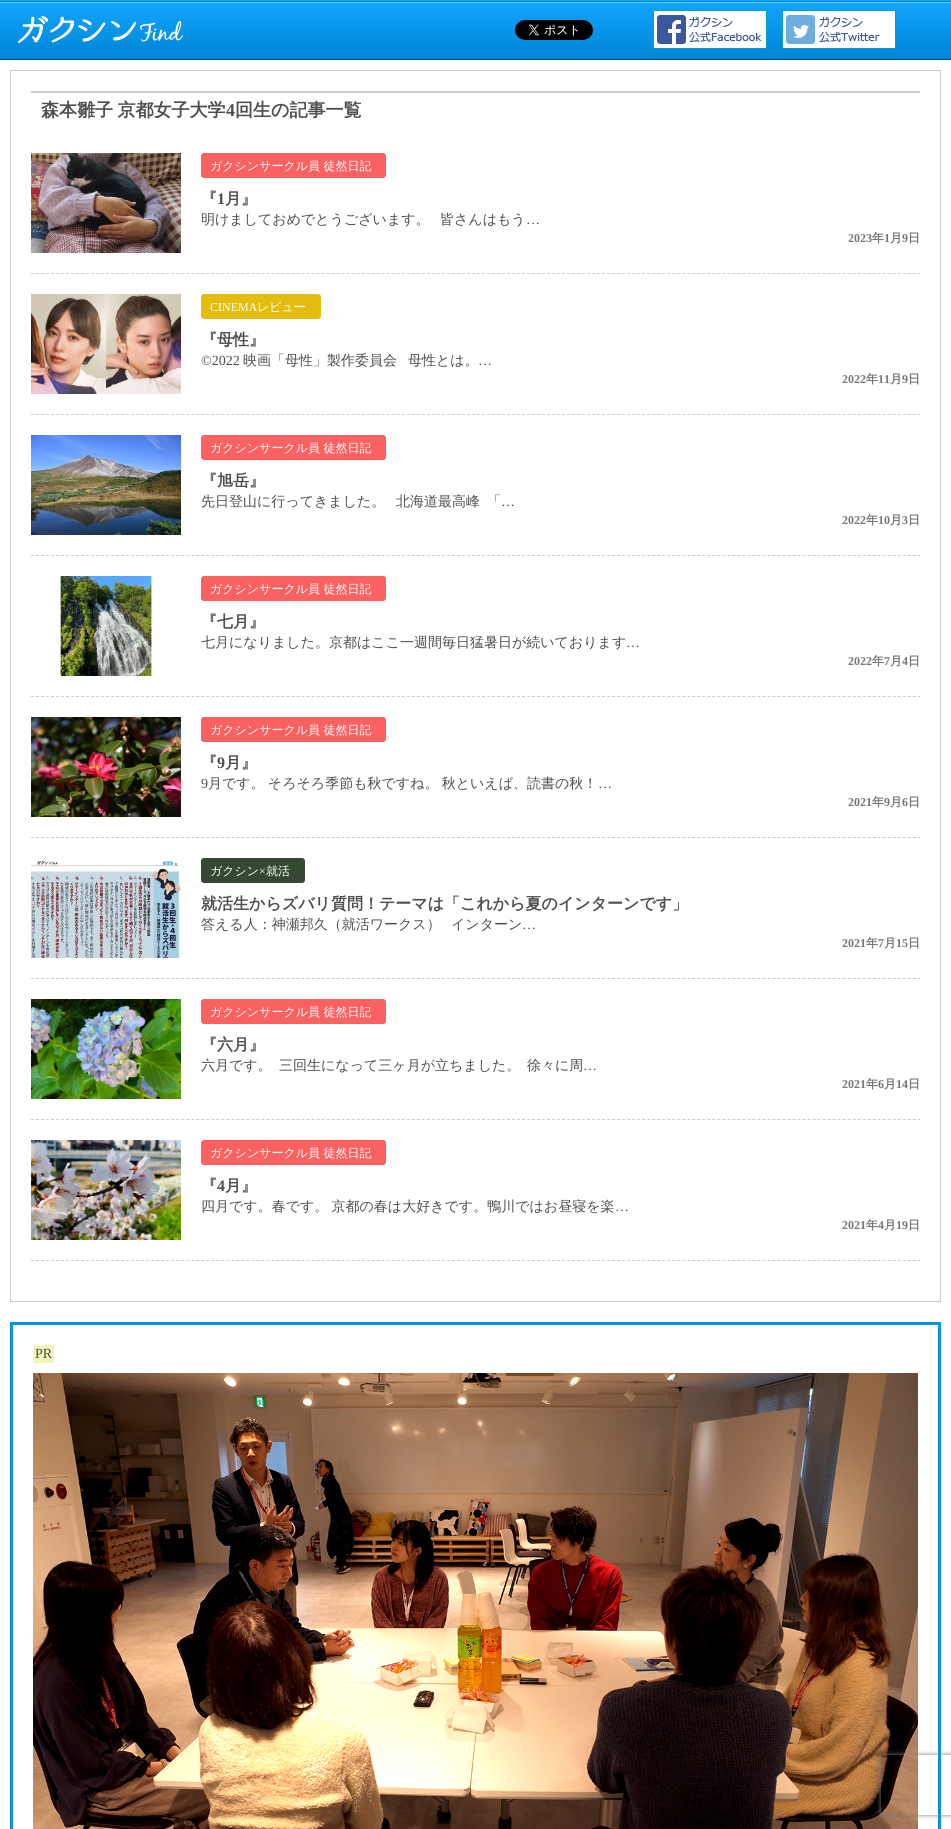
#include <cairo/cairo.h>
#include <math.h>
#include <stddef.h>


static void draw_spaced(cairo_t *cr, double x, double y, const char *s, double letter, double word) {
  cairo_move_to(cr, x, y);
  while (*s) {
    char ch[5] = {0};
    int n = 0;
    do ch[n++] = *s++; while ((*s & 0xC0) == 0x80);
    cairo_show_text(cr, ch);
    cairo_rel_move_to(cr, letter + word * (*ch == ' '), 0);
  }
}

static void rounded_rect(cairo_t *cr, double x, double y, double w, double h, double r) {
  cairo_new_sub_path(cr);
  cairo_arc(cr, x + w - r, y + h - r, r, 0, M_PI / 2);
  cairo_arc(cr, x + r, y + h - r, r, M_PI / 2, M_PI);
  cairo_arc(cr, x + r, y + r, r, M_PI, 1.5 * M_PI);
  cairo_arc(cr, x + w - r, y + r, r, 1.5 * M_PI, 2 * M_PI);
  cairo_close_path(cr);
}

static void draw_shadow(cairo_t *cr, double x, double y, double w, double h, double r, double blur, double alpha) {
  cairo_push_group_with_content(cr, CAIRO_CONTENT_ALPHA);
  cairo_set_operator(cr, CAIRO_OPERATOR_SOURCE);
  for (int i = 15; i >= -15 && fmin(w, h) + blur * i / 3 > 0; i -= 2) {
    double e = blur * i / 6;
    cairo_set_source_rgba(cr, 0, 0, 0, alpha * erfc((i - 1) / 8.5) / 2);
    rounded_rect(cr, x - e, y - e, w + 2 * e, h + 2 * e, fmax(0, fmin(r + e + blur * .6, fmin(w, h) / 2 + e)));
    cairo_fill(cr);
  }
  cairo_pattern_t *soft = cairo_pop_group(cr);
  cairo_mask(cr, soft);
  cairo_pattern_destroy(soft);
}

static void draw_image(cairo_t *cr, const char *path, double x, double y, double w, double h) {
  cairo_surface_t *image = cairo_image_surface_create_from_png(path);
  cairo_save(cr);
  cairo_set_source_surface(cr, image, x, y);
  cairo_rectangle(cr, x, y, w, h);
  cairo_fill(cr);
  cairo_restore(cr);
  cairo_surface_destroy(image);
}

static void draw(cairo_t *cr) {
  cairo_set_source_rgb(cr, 1, 1, 1);
  cairo_paint(cr);
  draw_image(cr, "images/1.png", 0, 0, 951, 60);
  draw_image(cr, "images/2.png", 18, 16, 165, 27);
  draw_image(cr, "images/3.png", 515, 20, 78, 20);
  draw_image(cr, "images/4.png", 653, 10, 114, 39);
  draw_image(cr, "images/5.png", 782, 10, 114, 39);
  cairo_rectangle(cr, 10.5, 70.5, 930, 1231);
  cairo_set_source_rgb(cr, 204 / 255.0, 204 / 255.0, 204 / 255.0);
  cairo_set_line_width(cr, 1);
  cairo_stroke(cr);
  cairo_rectangle(cr, 31, 91, 889, 2);
  cairo_fill(cr);
  cairo_new_path(cr);
  cairo_move_to(cr, 31, 273.5);
  cairo_line_to(cr, 920, 273.5);
  cairo_set_dash(cr, (double[]){3, 2.01}, 2, 0);
  cairo_stroke(cr);
  draw_image(cr, "images/6.png", 31, 153, 150, 100);
  cairo_set_source_rgb(cr, 250 / 255.0, 97 / 255.0, 97 / 255.0);
  rounded_rect(cr, 201, 153, 185, 25, 3);
  cairo_fill(cr);
  cairo_new_path(cr);
  cairo_move_to(cr, 31, 414.5);
  cairo_line_to(cr, 920, 414.5);
  cairo_set_source_rgb(cr, 204 / 255.0, 204 / 255.0, 204 / 255.0);
  cairo_stroke(cr);
  draw_image(cr, "images/7.png", 31, 294, 150, 100);
  cairo_set_source_rgb(cr, 228 / 255.0, 189 / 255.0, 17 / 255.0);
  rounded_rect(cr, 201, 294, 120, 25, 3);
  cairo_fill(cr);
  cairo_new_path(cr);
  cairo_move_to(cr, 31, 555.5);
  cairo_line_to(cr, 920, 555.5);
  cairo_set_source_rgb(cr, 204 / 255.0, 204 / 255.0, 204 / 255.0);
  cairo_stroke(cr);
  draw_image(cr, "images/8.png", 31, 435, 150, 100);
  cairo_set_source_rgb(cr, 250 / 255.0, 97 / 255.0, 97 / 255.0);
  rounded_rect(cr, 201, 435, 185, 25, 3);
  cairo_fill(cr);
  cairo_new_path(cr);
  cairo_move_to(cr, 31, 696.5);
  cairo_line_to(cr, 920, 696.5);
  cairo_set_source_rgb(cr, 204 / 255.0, 204 / 255.0, 204 / 255.0);
  cairo_stroke(cr);
  draw_image(cr, "images/9.png", 60, 576, 92, 100);
  cairo_set_source_rgb(cr, 250 / 255.0, 97 / 255.0, 97 / 255.0);
  rounded_rect(cr, 201, 576, 185, 25, 3);
  cairo_fill(cr);
  cairo_new_path(cr);
  cairo_move_to(cr, 31, 837.5);
  cairo_line_to(cr, 920, 837.5);
  cairo_set_source_rgb(cr, 204 / 255.0, 204 / 255.0, 204 / 255.0);
  cairo_stroke(cr);
  draw_image(cr, "images/10.png", 31, 717, 150, 100);
  cairo_set_source_rgb(cr, 250 / 255.0, 97 / 255.0, 97 / 255.0);
  rounded_rect(cr, 201, 717, 185, 25, 3);
  cairo_fill(cr);
  cairo_new_path(cr);
  cairo_move_to(cr, 31, 978.5);
  cairo_line_to(cr, 920, 978.5);
  cairo_set_source_rgb(cr, 204 / 255.0, 204 / 255.0, 204 / 255.0);
  cairo_stroke(cr);
  draw_image(cr, "images/11.png", 31, 860, 150, 98);
  cairo_set_source_rgb(cr, 53 / 255.0, 73 / 255.0, 50 / 255.0);
  rounded_rect(cr, 201, 858, 104, 25, 3);
  cairo_fill(cr);
  cairo_new_path(cr);
  cairo_move_to(cr, 31, 1119.5);
  cairo_line_to(cr, 920, 1119.5);
  cairo_set_source_rgb(cr, 204 / 255.0, 204 / 255.0, 204 / 255.0);
  cairo_stroke(cr);
  draw_image(cr, "images/12.png", 31, 999, 150, 100);
  cairo_set_source_rgb(cr, 250 / 255.0, 97 / 255.0, 97 / 255.0);
  rounded_rect(cr, 201, 999, 185, 25, 3);
  cairo_fill(cr);
  cairo_new_path(cr);
  cairo_move_to(cr, 31, 1260.5);
  cairo_line_to(cr, 920, 1260.5);
  cairo_set_source_rgb(cr, 204 / 255.0, 204 / 255.0, 204 / 255.0);
  cairo_stroke(cr);
  draw_image(cr, "images/13.png", 31, 1140, 150, 100);
  cairo_set_source_rgb(cr, 250 / 255.0, 97 / 255.0, 97 / 255.0);
  rounded_rect(cr, 201, 1140, 185, 25, 3);
  cairo_fill(cr);
  cairo_rectangle(cr, 11.5, 1323.5, 928, 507);
  cairo_set_source_rgb(cr, 7 / 255.0, 146 / 255.0, 229 / 255.0);
  cairo_set_line_width(cr, 3);
  cairo_set_dash(cr, NULL, 0, 0);
  cairo_stroke(cr);
  cairo_set_source_rgb(cr, 243 / 255.0, 245 / 255.0, 180 / 255.0);
  cairo_rectangle(cr, 33, 1345, 21, 18);
  cairo_fill(cr);
  draw_image(cr, "images/14.png", 33, 1373, 885, 456);
  cairo_save(cr);
  cairo_set_fill_rule(cr, CAIRO_FILL_RULE_EVEN_ODD);
  cairo_new_path(cr);
  cairo_move_to(cr, 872, 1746);
  cairo_line_to(cr, 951, 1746);
  cairo_line_to(cr, 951, 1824);
  cairo_line_to(cr, 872, 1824);
  cairo_close_path(cr);
  cairo_move_to(cr, 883, 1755);
  cairo_line_to(cr, 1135, 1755);
  cairo_curve_to(cr, 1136, 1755, 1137, 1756, 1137, 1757);
  cairo_line_to(cr, 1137, 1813);
  cairo_curve_to(cr, 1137, 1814, 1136, 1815, 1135, 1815);
  cairo_line_to(cr, 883, 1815);
  cairo_curve_to(cr, 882, 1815, 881, 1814, 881, 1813);
  cairo_line_to(cr, 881, 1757);
  cairo_curve_to(cr, 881, 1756, 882, 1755, 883, 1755);
  cairo_close_path(cr);
  cairo_clip(cr);
  cairo_set_source_rgb(cr, 128 / 255.0, 128 / 255.0, 128 / 255.0);
  draw_shadow(cr, 881, 1755, 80, 60, 2, 2.5, 1);
  cairo_restore(cr);
  cairo_select_font_face(cr, "WenQuanYi Zen Hei", CAIRO_FONT_SLANT_NORMAL, CAIRO_FONT_WEIGHT_BOLD);
  cairo_set_font_size(cr, 18);
  cairo_set_source_rgb(cr, 78 / 255.0, 78 / 255.0, 78 / 255.0);
  draw_spaced(cr, 41, 116, "森本雛子 京都女子大学", 0, -1);
  cairo_select_font_face(cr, "Liberation Serif", CAIRO_FONT_SLANT_NORMAL, CAIRO_FONT_WEIGHT_BOLD);
  cairo_move_to(cr, 226, 116);
  cairo_show_text(cr, "4");
  cairo_select_font_face(cr, "WenQuanYi Zen Hei", CAIRO_FONT_SLANT_NORMAL, CAIRO_FONT_WEIGHT_BOLD);
  cairo_move_to(cr, 235, 116);
  cairo_show_text(cr, "回生の記事一覧");
  cairo_select_font_face(cr, "WenQuanYi Zen Hei Medium", CAIRO_FONT_SLANT_NORMAL, CAIRO_FONT_WEIGHT_NORMAL);
  cairo_set_font_size(cr, 12);
  cairo_set_source_rgb(cr, 1, 1, 1);
  cairo_move_to(cr, 210, 170);
  cairo_show_text(cr, "ガクシンサークル員 徒然日記");
  cairo_select_font_face(cr, "WenQuanYi Zen Hei", CAIRO_FONT_SLANT_NORMAL, CAIRO_FONT_WEIGHT_BOLD);
  cairo_set_font_size(cr, 16);
  cairo_set_source_rgb(cr, 78 / 255.0, 78 / 255.0, 78 / 255.0);
  cairo_move_to(cr, 201, 204);
  cairo_show_text(cr, "『");
  cairo_select_font_face(cr, "Liberation Serif", CAIRO_FONT_SLANT_NORMAL, CAIRO_FONT_WEIGHT_BOLD);
  cairo_move_to(cr, 217, 204);
  cairo_show_text(cr, "1");
  cairo_select_font_face(cr, "WenQuanYi Zen Hei", CAIRO_FONT_SLANT_NORMAL, CAIRO_FONT_WEIGHT_BOLD);
  cairo_move_to(cr, 225, 204);
  cairo_show_text(cr, "月』");
  cairo_select_font_face(cr, "WenQuanYi Zen Hei Medium", CAIRO_FONT_SLANT_NORMAL, CAIRO_FONT_WEIGHT_NORMAL);
  cairo_set_font_size(cr, 14);
  cairo_move_to(cr, 201, 224);
  cairo_show_text(cr, "明けましておめでとうございます。");
  cairo_move_to(cr, 440, 224);
  cairo_show_text(cr, "皆さんはもう");
  cairo_select_font_face(cr, "Liberation Serif", CAIRO_FONT_SLANT_NORMAL, CAIRO_FONT_WEIGHT_NORMAL);
  cairo_move_to(cr, 526, 224);
  cairo_show_text(cr, "…");
  cairo_select_font_face(cr, "Liberation Serif", CAIRO_FONT_SLANT_NORMAL, CAIRO_FONT_WEIGHT_BOLD);
  cairo_set_font_size(cr, 12);
  cairo_set_source_rgb(cr, 119 / 255.0, 119 / 255.0, 119 / 255.0);
  cairo_move_to(cr, 848, 242);
  cairo_show_text(cr, "2023");
  cairo_select_font_face(cr, "WenQuanYi Zen Hei", CAIRO_FONT_SLANT_NORMAL, CAIRO_FONT_WEIGHT_BOLD);
  cairo_move_to(cr, 872, 242);
  cairo_show_text(cr, "年");
  cairo_select_font_face(cr, "Liberation Serif", CAIRO_FONT_SLANT_NORMAL, CAIRO_FONT_WEIGHT_BOLD);
  cairo_move_to(cr, 884, 242);
  cairo_show_text(cr, "1");
  cairo_select_font_face(cr, "WenQuanYi Zen Hei", CAIRO_FONT_SLANT_NORMAL, CAIRO_FONT_WEIGHT_BOLD);
  cairo_move_to(cr, 890, 242);
  cairo_show_text(cr, "月");
  cairo_select_font_face(cr, "Liberation Serif", CAIRO_FONT_SLANT_NORMAL, CAIRO_FONT_WEIGHT_BOLD);
  cairo_move_to(cr, 902, 242);
  cairo_show_text(cr, "9");
  cairo_select_font_face(cr, "WenQuanYi Zen Hei", CAIRO_FONT_SLANT_NORMAL, CAIRO_FONT_WEIGHT_BOLD);
  cairo_move_to(cr, 908, 242);
  cairo_show_text(cr, "日");
  cairo_select_font_face(cr, "Liberation Serif", CAIRO_FONT_SLANT_NORMAL, CAIRO_FONT_WEIGHT_NORMAL);
  cairo_set_source_rgb(cr, 1, 1, 1);
  cairo_move_to(cr, 210, 311);
  cairo_show_text(cr, "CINEMA");
  cairo_select_font_face(cr, "WenQuanYi Zen Hei Medium", CAIRO_FONT_SLANT_NORMAL, CAIRO_FONT_WEIGHT_NORMAL);
  cairo_move_to(cr, 257, 311);
  cairo_show_text(cr, "レビュー");
  cairo_select_font_face(cr, "WenQuanYi Zen Hei", CAIRO_FONT_SLANT_NORMAL, CAIRO_FONT_WEIGHT_BOLD);
  cairo_set_font_size(cr, 16);
  cairo_set_source_rgb(cr, 78 / 255.0, 78 / 255.0, 78 / 255.0);
  cairo_move_to(cr, 201, 345);
  cairo_show_text(cr, "『母性』");
  cairo_select_font_face(cr, "Liberation Serif", CAIRO_FONT_SLANT_NORMAL, CAIRO_FONT_WEIGHT_NORMAL);
  cairo_set_font_size(cr, 14);
  cairo_move_to(cr, 201, 365);
  cairo_show_text(cr, "©2022");
  cairo_select_font_face(cr, "WenQuanYi Zen Hei Medium", CAIRO_FONT_SLANT_NORMAL, CAIRO_FONT_WEIGHT_NORMAL);
  cairo_move_to(cr, 243, 365);
  cairo_show_text(cr, "映画「母性」製作委員会");
  cairo_move_to(cr, 408, 365);
  cairo_show_text(cr, "母性とは。");
  cairo_select_font_face(cr, "Liberation Serif", CAIRO_FONT_SLANT_NORMAL, CAIRO_FONT_WEIGHT_NORMAL);
  cairo_move_to(cr, 478, 365);
  cairo_show_text(cr, "…");
  cairo_select_font_face(cr, "Liberation Serif", CAIRO_FONT_SLANT_NORMAL, CAIRO_FONT_WEIGHT_BOLD);
  cairo_set_font_size(cr, 12);
  cairo_set_source_rgb(cr, 119 / 255.0, 119 / 255.0, 119 / 255.0);
  cairo_move_to(cr, 842, 383);
  cairo_show_text(cr, "2022");
  cairo_select_font_face(cr, "WenQuanYi Zen Hei", CAIRO_FONT_SLANT_NORMAL, CAIRO_FONT_WEIGHT_BOLD);
  cairo_move_to(cr, 866, 383);
  cairo_show_text(cr, "年");
  cairo_select_font_face(cr, "Liberation Serif", CAIRO_FONT_SLANT_NORMAL, CAIRO_FONT_WEIGHT_BOLD);
  cairo_move_to(cr, 878, 383);
  cairo_show_text(cr, "11");
  cairo_select_font_face(cr, "WenQuanYi Zen Hei", CAIRO_FONT_SLANT_NORMAL, CAIRO_FONT_WEIGHT_BOLD);
  cairo_move_to(cr, 890, 383);
  cairo_show_text(cr, "月");
  cairo_select_font_face(cr, "Liberation Serif", CAIRO_FONT_SLANT_NORMAL, CAIRO_FONT_WEIGHT_BOLD);
  cairo_move_to(cr, 902, 383);
  cairo_show_text(cr, "9");
  cairo_select_font_face(cr, "WenQuanYi Zen Hei", CAIRO_FONT_SLANT_NORMAL, CAIRO_FONT_WEIGHT_BOLD);
  cairo_move_to(cr, 908, 383);
  cairo_show_text(cr, "日");
  cairo_select_font_face(cr, "WenQuanYi Zen Hei Medium", CAIRO_FONT_SLANT_NORMAL, CAIRO_FONT_WEIGHT_NORMAL);
  cairo_set_source_rgb(cr, 1, 1, 1);
  cairo_move_to(cr, 210, 452);
  cairo_show_text(cr, "ガクシンサークル員 徒然日記");
  cairo_select_font_face(cr, "WenQuanYi Zen Hei", CAIRO_FONT_SLANT_NORMAL, CAIRO_FONT_WEIGHT_BOLD);
  cairo_set_font_size(cr, 16);
  cairo_set_source_rgb(cr, 78 / 255.0, 78 / 255.0, 78 / 255.0);
  cairo_move_to(cr, 201, 486);
  cairo_show_text(cr, "『旭岳』");
  cairo_select_font_face(cr, "WenQuanYi Zen Hei Medium", CAIRO_FONT_SLANT_NORMAL, CAIRO_FONT_WEIGHT_NORMAL);
  cairo_set_font_size(cr, 14);
  cairo_move_to(cr, 201, 506);
  cairo_show_text(cr, "先日登山に行ってきました。");
  cairo_move_to(cr, 396, 506);
  cairo_show_text(cr, "北海道最高峰");
  cairo_move_to(cr, 487, 506);
  cairo_show_text(cr, "「");
  cairo_select_font_face(cr, "Liberation Serif", CAIRO_FONT_SLANT_NORMAL, CAIRO_FONT_WEIGHT_NORMAL);
  cairo_move_to(cr, 501, 506);
  cairo_show_text(cr, "…");
  cairo_select_font_face(cr, "Liberation Serif", CAIRO_FONT_SLANT_NORMAL, CAIRO_FONT_WEIGHT_BOLD);
  cairo_set_font_size(cr, 12);
  cairo_set_source_rgb(cr, 119 / 255.0, 119 / 255.0, 119 / 255.0);
  cairo_move_to(cr, 842, 524);
  cairo_show_text(cr, "2022");
  cairo_select_font_face(cr, "WenQuanYi Zen Hei", CAIRO_FONT_SLANT_NORMAL, CAIRO_FONT_WEIGHT_BOLD);
  cairo_move_to(cr, 866, 524);
  cairo_show_text(cr, "年");
  cairo_select_font_face(cr, "Liberation Serif", CAIRO_FONT_SLANT_NORMAL, CAIRO_FONT_WEIGHT_BOLD);
  cairo_move_to(cr, 878, 524);
  cairo_show_text(cr, "10");
  cairo_select_font_face(cr, "WenQuanYi Zen Hei", CAIRO_FONT_SLANT_NORMAL, CAIRO_FONT_WEIGHT_BOLD);
  cairo_move_to(cr, 890, 524);
  cairo_show_text(cr, "月");
  cairo_select_font_face(cr, "Liberation Serif", CAIRO_FONT_SLANT_NORMAL, CAIRO_FONT_WEIGHT_BOLD);
  cairo_move_to(cr, 902, 524);
  cairo_show_text(cr, "3");
  cairo_select_font_face(cr, "WenQuanYi Zen Hei", CAIRO_FONT_SLANT_NORMAL, CAIRO_FONT_WEIGHT_BOLD);
  cairo_move_to(cr, 908, 524);
  cairo_show_text(cr, "日");
  cairo_select_font_face(cr, "WenQuanYi Zen Hei Medium", CAIRO_FONT_SLANT_NORMAL, CAIRO_FONT_WEIGHT_NORMAL);
  cairo_set_source_rgb(cr, 1, 1, 1);
  cairo_move_to(cr, 210, 593);
  cairo_show_text(cr, "ガクシンサークル員 徒然日記");
  cairo_select_font_face(cr, "WenQuanYi Zen Hei", CAIRO_FONT_SLANT_NORMAL, CAIRO_FONT_WEIGHT_BOLD);
  cairo_set_font_size(cr, 16);
  cairo_set_source_rgb(cr, 78 / 255.0, 78 / 255.0, 78 / 255.0);
  cairo_move_to(cr, 201, 627);
  cairo_show_text(cr, "『七月』");
  cairo_select_font_face(cr, "WenQuanYi Zen Hei Medium", CAIRO_FONT_SLANT_NORMAL, CAIRO_FONT_WEIGHT_NORMAL);
  cairo_set_font_size(cr, 14);
  cairo_move_to(cr, 201, 647);
  cairo_show_text(cr, "七月になりました。京都はここ一週間毎日猛暑日が続いております");
  cairo_select_font_face(cr, "Liberation Serif", CAIRO_FONT_SLANT_NORMAL, CAIRO_FONT_WEIGHT_NORMAL);
  cairo_move_to(cr, 626, 647);
  cairo_show_text(cr, "…");
  cairo_select_font_face(cr, "Liberation Serif", CAIRO_FONT_SLANT_NORMAL, CAIRO_FONT_WEIGHT_BOLD);
  cairo_set_font_size(cr, 12);
  cairo_set_source_rgb(cr, 119 / 255.0, 119 / 255.0, 119 / 255.0);
  cairo_move_to(cr, 848, 665);
  cairo_show_text(cr, "2022");
  cairo_select_font_face(cr, "WenQuanYi Zen Hei", CAIRO_FONT_SLANT_NORMAL, CAIRO_FONT_WEIGHT_BOLD);
  cairo_move_to(cr, 872, 665);
  cairo_show_text(cr, "年");
  cairo_select_font_face(cr, "Liberation Serif", CAIRO_FONT_SLANT_NORMAL, CAIRO_FONT_WEIGHT_BOLD);
  cairo_move_to(cr, 884, 665);
  cairo_show_text(cr, "7");
  cairo_select_font_face(cr, "WenQuanYi Zen Hei", CAIRO_FONT_SLANT_NORMAL, CAIRO_FONT_WEIGHT_BOLD);
  cairo_move_to(cr, 890, 665);
  cairo_show_text(cr, "月");
  cairo_select_font_face(cr, "Liberation Serif", CAIRO_FONT_SLANT_NORMAL, CAIRO_FONT_WEIGHT_BOLD);
  cairo_move_to(cr, 902, 665);
  cairo_show_text(cr, "4");
  cairo_select_font_face(cr, "WenQuanYi Zen Hei", CAIRO_FONT_SLANT_NORMAL, CAIRO_FONT_WEIGHT_BOLD);
  cairo_move_to(cr, 908, 665);
  cairo_show_text(cr, "日");
  cairo_select_font_face(cr, "WenQuanYi Zen Hei Medium", CAIRO_FONT_SLANT_NORMAL, CAIRO_FONT_WEIGHT_NORMAL);
  cairo_set_source_rgb(cr, 1, 1, 1);
  cairo_move_to(cr, 210, 734);
  cairo_show_text(cr, "ガクシンサークル員 徒然日記");
  cairo_select_font_face(cr, "WenQuanYi Zen Hei", CAIRO_FONT_SLANT_NORMAL, CAIRO_FONT_WEIGHT_BOLD);
  cairo_set_font_size(cr, 16);
  cairo_set_source_rgb(cr, 78 / 255.0, 78 / 255.0, 78 / 255.0);
  cairo_move_to(cr, 201, 768);
  cairo_show_text(cr, "『");
  cairo_select_font_face(cr, "Liberation Serif", CAIRO_FONT_SLANT_NORMAL, CAIRO_FONT_WEIGHT_BOLD);
  cairo_move_to(cr, 217, 768);
  cairo_show_text(cr, "9");
  cairo_select_font_face(cr, "WenQuanYi Zen Hei", CAIRO_FONT_SLANT_NORMAL, CAIRO_FONT_WEIGHT_BOLD);
  cairo_move_to(cr, 225, 768);
  cairo_show_text(cr, "月』");
  cairo_select_font_face(cr, "Liberation Serif", CAIRO_FONT_SLANT_NORMAL, CAIRO_FONT_WEIGHT_NORMAL);
  cairo_set_font_size(cr, 14);
  cairo_move_to(cr, 201, 788);
  cairo_show_text(cr, "9");
  cairo_select_font_face(cr, "WenQuanYi Zen Hei Medium", CAIRO_FONT_SLANT_NORMAL, CAIRO_FONT_WEIGHT_NORMAL);
  draw_spaced(cr, 208, 788, "月です。 そろそろ季節も秋ですね。 秋といえば、読書の秋！", 0, -1);
  cairo_select_font_face(cr, "Liberation Serif", CAIRO_FONT_SLANT_NORMAL, CAIRO_FONT_WEIGHT_NORMAL);
  cairo_move_to(cr, 598, 788);
  cairo_show_text(cr, "…");
  cairo_select_font_face(cr, "Liberation Serif", CAIRO_FONT_SLANT_NORMAL, CAIRO_FONT_WEIGHT_BOLD);
  cairo_set_font_size(cr, 12);
  cairo_set_source_rgb(cr, 119 / 255.0, 119 / 255.0, 119 / 255.0);
  cairo_move_to(cr, 848, 806);
  cairo_show_text(cr, "2021");
  cairo_select_font_face(cr, "WenQuanYi Zen Hei", CAIRO_FONT_SLANT_NORMAL, CAIRO_FONT_WEIGHT_BOLD);
  cairo_move_to(cr, 872, 806);
  cairo_show_text(cr, "年");
  cairo_select_font_face(cr, "Liberation Serif", CAIRO_FONT_SLANT_NORMAL, CAIRO_FONT_WEIGHT_BOLD);
  cairo_move_to(cr, 884, 806);
  cairo_show_text(cr, "9");
  cairo_select_font_face(cr, "WenQuanYi Zen Hei", CAIRO_FONT_SLANT_NORMAL, CAIRO_FONT_WEIGHT_BOLD);
  cairo_move_to(cr, 890, 806);
  cairo_show_text(cr, "月");
  cairo_select_font_face(cr, "Liberation Serif", CAIRO_FONT_SLANT_NORMAL, CAIRO_FONT_WEIGHT_BOLD);
  cairo_move_to(cr, 902, 806);
  cairo_show_text(cr, "6");
  cairo_select_font_face(cr, "WenQuanYi Zen Hei", CAIRO_FONT_SLANT_NORMAL, CAIRO_FONT_WEIGHT_BOLD);
  cairo_move_to(cr, 908, 806);
  cairo_show_text(cr, "日");
  cairo_select_font_face(cr, "WenQuanYi Zen Hei Medium", CAIRO_FONT_SLANT_NORMAL, CAIRO_FONT_WEIGHT_NORMAL);
  cairo_set_source_rgb(cr, 1, 1, 1);
  cairo_move_to(cr, 210, 875);
  cairo_show_text(cr, "ガクシン");
  cairo_select_font_face(cr, "Liberation Serif", CAIRO_FONT_SLANT_NORMAL, CAIRO_FONT_WEIGHT_NORMAL);
  cairo_move_to(cr, 259, 875);
  cairo_show_text(cr, "×");
  cairo_select_font_face(cr, "WenQuanYi Zen Hei Medium", CAIRO_FONT_SLANT_NORMAL, CAIRO_FONT_WEIGHT_NORMAL);
  cairo_move_to(cr, 266, 875);
  cairo_show_text(cr, "就活");
  cairo_select_font_face(cr, "WenQuanYi Zen Hei", CAIRO_FONT_SLANT_NORMAL, CAIRO_FONT_WEIGHT_BOLD);
  cairo_set_font_size(cr, 16);
  cairo_set_source_rgb(cr, 78 / 255.0, 78 / 255.0, 78 / 255.0);
  cairo_move_to(cr, 201, 909);
  cairo_show_text(cr, "就活生からズバリ質問！テーマは「これから夏のインターンです」");
  cairo_select_font_face(cr, "WenQuanYi Zen Hei Medium", CAIRO_FONT_SLANT_NORMAL, CAIRO_FONT_WEIGHT_NORMAL);
  cairo_set_font_size(cr, 14);
  cairo_move_to(cr, 201, 929);
  cairo_show_text(cr, "答える人：神瀬邦久（就活ワークス）");
  cairo_move_to(cr, 451, 929);
  cairo_show_text(cr, "インターン");
  cairo_select_font_face(cr, "Liberation Serif", CAIRO_FONT_SLANT_NORMAL, CAIRO_FONT_WEIGHT_NORMAL);
  cairo_move_to(cr, 522, 929);
  cairo_show_text(cr, "…");
  cairo_select_font_face(cr, "Liberation Serif", CAIRO_FONT_SLANT_NORMAL, CAIRO_FONT_WEIGHT_BOLD);
  cairo_set_font_size(cr, 12);
  cairo_set_source_rgb(cr, 119 / 255.0, 119 / 255.0, 119 / 255.0);
  cairo_move_to(cr, 842, 947);
  cairo_show_text(cr, "2021");
  cairo_select_font_face(cr, "WenQuanYi Zen Hei", CAIRO_FONT_SLANT_NORMAL, CAIRO_FONT_WEIGHT_BOLD);
  cairo_move_to(cr, 866, 947);
  cairo_show_text(cr, "年");
  cairo_select_font_face(cr, "Liberation Serif", CAIRO_FONT_SLANT_NORMAL, CAIRO_FONT_WEIGHT_BOLD);
  cairo_move_to(cr, 878, 947);
  cairo_show_text(cr, "7");
  cairo_select_font_face(cr, "WenQuanYi Zen Hei", CAIRO_FONT_SLANT_NORMAL, CAIRO_FONT_WEIGHT_BOLD);
  cairo_move_to(cr, 884, 947);
  cairo_show_text(cr, "月");
  cairo_select_font_face(cr, "Liberation Serif", CAIRO_FONT_SLANT_NORMAL, CAIRO_FONT_WEIGHT_BOLD);
  cairo_move_to(cr, 896, 947);
  cairo_show_text(cr, "15");
  cairo_select_font_face(cr, "WenQuanYi Zen Hei", CAIRO_FONT_SLANT_NORMAL, CAIRO_FONT_WEIGHT_BOLD);
  cairo_move_to(cr, 908, 947);
  cairo_show_text(cr, "日");
  cairo_select_font_face(cr, "WenQuanYi Zen Hei Medium", CAIRO_FONT_SLANT_NORMAL, CAIRO_FONT_WEIGHT_NORMAL);
  cairo_set_source_rgb(cr, 1, 1, 1);
  cairo_move_to(cr, 210, 1016);
  cairo_show_text(cr, "ガクシンサークル員 徒然日記");
  cairo_select_font_face(cr, "WenQuanYi Zen Hei", CAIRO_FONT_SLANT_NORMAL, CAIRO_FONT_WEIGHT_BOLD);
  cairo_set_font_size(cr, 16);
  cairo_set_source_rgb(cr, 78 / 255.0, 78 / 255.0, 78 / 255.0);
  cairo_move_to(cr, 201, 1050);
  cairo_show_text(cr, "『六月』");
  cairo_select_font_face(cr, "WenQuanYi Zen Hei Medium", CAIRO_FONT_SLANT_NORMAL, CAIRO_FONT_WEIGHT_NORMAL);
  cairo_set_font_size(cr, 14);
  cairo_move_to(cr, 201, 1070);
  cairo_show_text(cr, "六月です。");
  cairo_move_to(cr, 279, 1070);
  cairo_show_text(cr, "三回生になって三ヶ月が立ちました。");
  cairo_move_to(cr, 527, 1070);
  cairo_show_text(cr, "徐々に周");
  cairo_select_font_face(cr, "Liberation Serif", CAIRO_FONT_SLANT_NORMAL, CAIRO_FONT_WEIGHT_NORMAL);
  cairo_move_to(cr, 583, 1070);
  cairo_show_text(cr, "…");
  cairo_select_font_face(cr, "Liberation Serif", CAIRO_FONT_SLANT_NORMAL, CAIRO_FONT_WEIGHT_BOLD);
  cairo_set_font_size(cr, 12);
  cairo_set_source_rgb(cr, 119 / 255.0, 119 / 255.0, 119 / 255.0);
  cairo_move_to(cr, 842, 1088);
  cairo_show_text(cr, "2021");
  cairo_select_font_face(cr, "WenQuanYi Zen Hei", CAIRO_FONT_SLANT_NORMAL, CAIRO_FONT_WEIGHT_BOLD);
  cairo_move_to(cr, 866, 1088);
  cairo_show_text(cr, "年");
  cairo_select_font_face(cr, "Liberation Serif", CAIRO_FONT_SLANT_NORMAL, CAIRO_FONT_WEIGHT_BOLD);
  cairo_move_to(cr, 878, 1088);
  cairo_show_text(cr, "6");
  cairo_select_font_face(cr, "WenQuanYi Zen Hei", CAIRO_FONT_SLANT_NORMAL, CAIRO_FONT_WEIGHT_BOLD);
  cairo_move_to(cr, 884, 1088);
  cairo_show_text(cr, "月");
  cairo_select_font_face(cr, "Liberation Serif", CAIRO_FONT_SLANT_NORMAL, CAIRO_FONT_WEIGHT_BOLD);
  cairo_move_to(cr, 896, 1088);
  cairo_show_text(cr, "14");
  cairo_select_font_face(cr, "WenQuanYi Zen Hei", CAIRO_FONT_SLANT_NORMAL, CAIRO_FONT_WEIGHT_BOLD);
  cairo_move_to(cr, 908, 1088);
  cairo_show_text(cr, "日");
  cairo_select_font_face(cr, "WenQuanYi Zen Hei Medium", CAIRO_FONT_SLANT_NORMAL, CAIRO_FONT_WEIGHT_NORMAL);
  cairo_set_source_rgb(cr, 1, 1, 1);
  cairo_move_to(cr, 210, 1157);
  cairo_show_text(cr, "ガクシンサークル員 徒然日記");
  cairo_select_font_face(cr, "WenQuanYi Zen Hei", CAIRO_FONT_SLANT_NORMAL, CAIRO_FONT_WEIGHT_BOLD);
  cairo_set_font_size(cr, 16);
  cairo_set_source_rgb(cr, 78 / 255.0, 78 / 255.0, 78 / 255.0);
  cairo_move_to(cr, 201, 1191);
  cairo_show_text(cr, "『");
  cairo_select_font_face(cr, "Liberation Serif", CAIRO_FONT_SLANT_NORMAL, CAIRO_FONT_WEIGHT_BOLD);
  cairo_move_to(cr, 217, 1191);
  cairo_show_text(cr, "4");
  cairo_select_font_face(cr, "WenQuanYi Zen Hei", CAIRO_FONT_SLANT_NORMAL, CAIRO_FONT_WEIGHT_BOLD);
  cairo_move_to(cr, 225, 1191);
  cairo_show_text(cr, "月』");
  cairo_select_font_face(cr, "WenQuanYi Zen Hei Medium", CAIRO_FONT_SLANT_NORMAL, CAIRO_FONT_WEIGHT_NORMAL);
  cairo_set_font_size(cr, 14);
  draw_spaced(cr, 201, 1211, "四月です。春です。 京都の春は大好きです。鴨川ではお昼寝を楽", 0, -1);
  cairo_select_font_face(cr, "Liberation Serif", CAIRO_FONT_SLANT_NORMAL, CAIRO_FONT_WEIGHT_NORMAL);
  cairo_move_to(cr, 615, 1211);
  cairo_show_text(cr, "…");
  cairo_select_font_face(cr, "Liberation Serif", CAIRO_FONT_SLANT_NORMAL, CAIRO_FONT_WEIGHT_BOLD);
  cairo_set_font_size(cr, 12);
  cairo_set_source_rgb(cr, 119 / 255.0, 119 / 255.0, 119 / 255.0);
  cairo_move_to(cr, 842, 1229);
  cairo_show_text(cr, "2021");
  cairo_select_font_face(cr, "WenQuanYi Zen Hei", CAIRO_FONT_SLANT_NORMAL, CAIRO_FONT_WEIGHT_BOLD);
  cairo_move_to(cr, 866, 1229);
  cairo_show_text(cr, "年");
  cairo_select_font_face(cr, "Liberation Serif", CAIRO_FONT_SLANT_NORMAL, CAIRO_FONT_WEIGHT_BOLD);
  cairo_move_to(cr, 878, 1229);
  cairo_show_text(cr, "4");
  cairo_select_font_face(cr, "WenQuanYi Zen Hei", CAIRO_FONT_SLANT_NORMAL, CAIRO_FONT_WEIGHT_BOLD);
  cairo_move_to(cr, 884, 1229);
  cairo_show_text(cr, "月");
  cairo_select_font_face(cr, "Liberation Serif", CAIRO_FONT_SLANT_NORMAL, CAIRO_FONT_WEIGHT_BOLD);
  cairo_move_to(cr, 896, 1229);
  cairo_show_text(cr, "19");
  cairo_select_font_face(cr, "WenQuanYi Zen Hei", CAIRO_FONT_SLANT_NORMAL, CAIRO_FONT_WEIGHT_BOLD);
  cairo_move_to(cr, 908, 1229);
  cairo_show_text(cr, "日");
  cairo_select_font_face(cr, "Liberation Serif", CAIRO_FONT_SLANT_NORMAL, CAIRO_FONT_WEIGHT_NORMAL);
  cairo_set_font_size(cr, 14);
  cairo_set_source_rgb(cr, 78 / 255.0, 78 / 255.0, 78 / 255.0);
  cairo_move_to(cr, 35, 1358);
  cairo_show_text(cr, "PR");
}

int main(void) {
  cairo_surface_t *surface = cairo_image_surface_create(CAIRO_FORMAT_RGB24, 951, 1829);
  cairo_t *cr = cairo_create(surface);
  cairo_font_options_t *options = cairo_font_options_create();
  cairo_font_options_set_hint_metrics(options, CAIRO_HINT_METRICS_OFF);
  cairo_font_options_set_hint_style(options, CAIRO_HINT_STYLE_NONE);
  cairo_set_font_options(cr, options);
  cairo_set_miter_limit(cr, 4);
  draw(cr);
  cairo_surface_write_to_png(surface, "out.png");
  cairo_font_options_destroy(options);
  cairo_destroy(cr);
  cairo_surface_destroy(surface);
  return 0;
}
